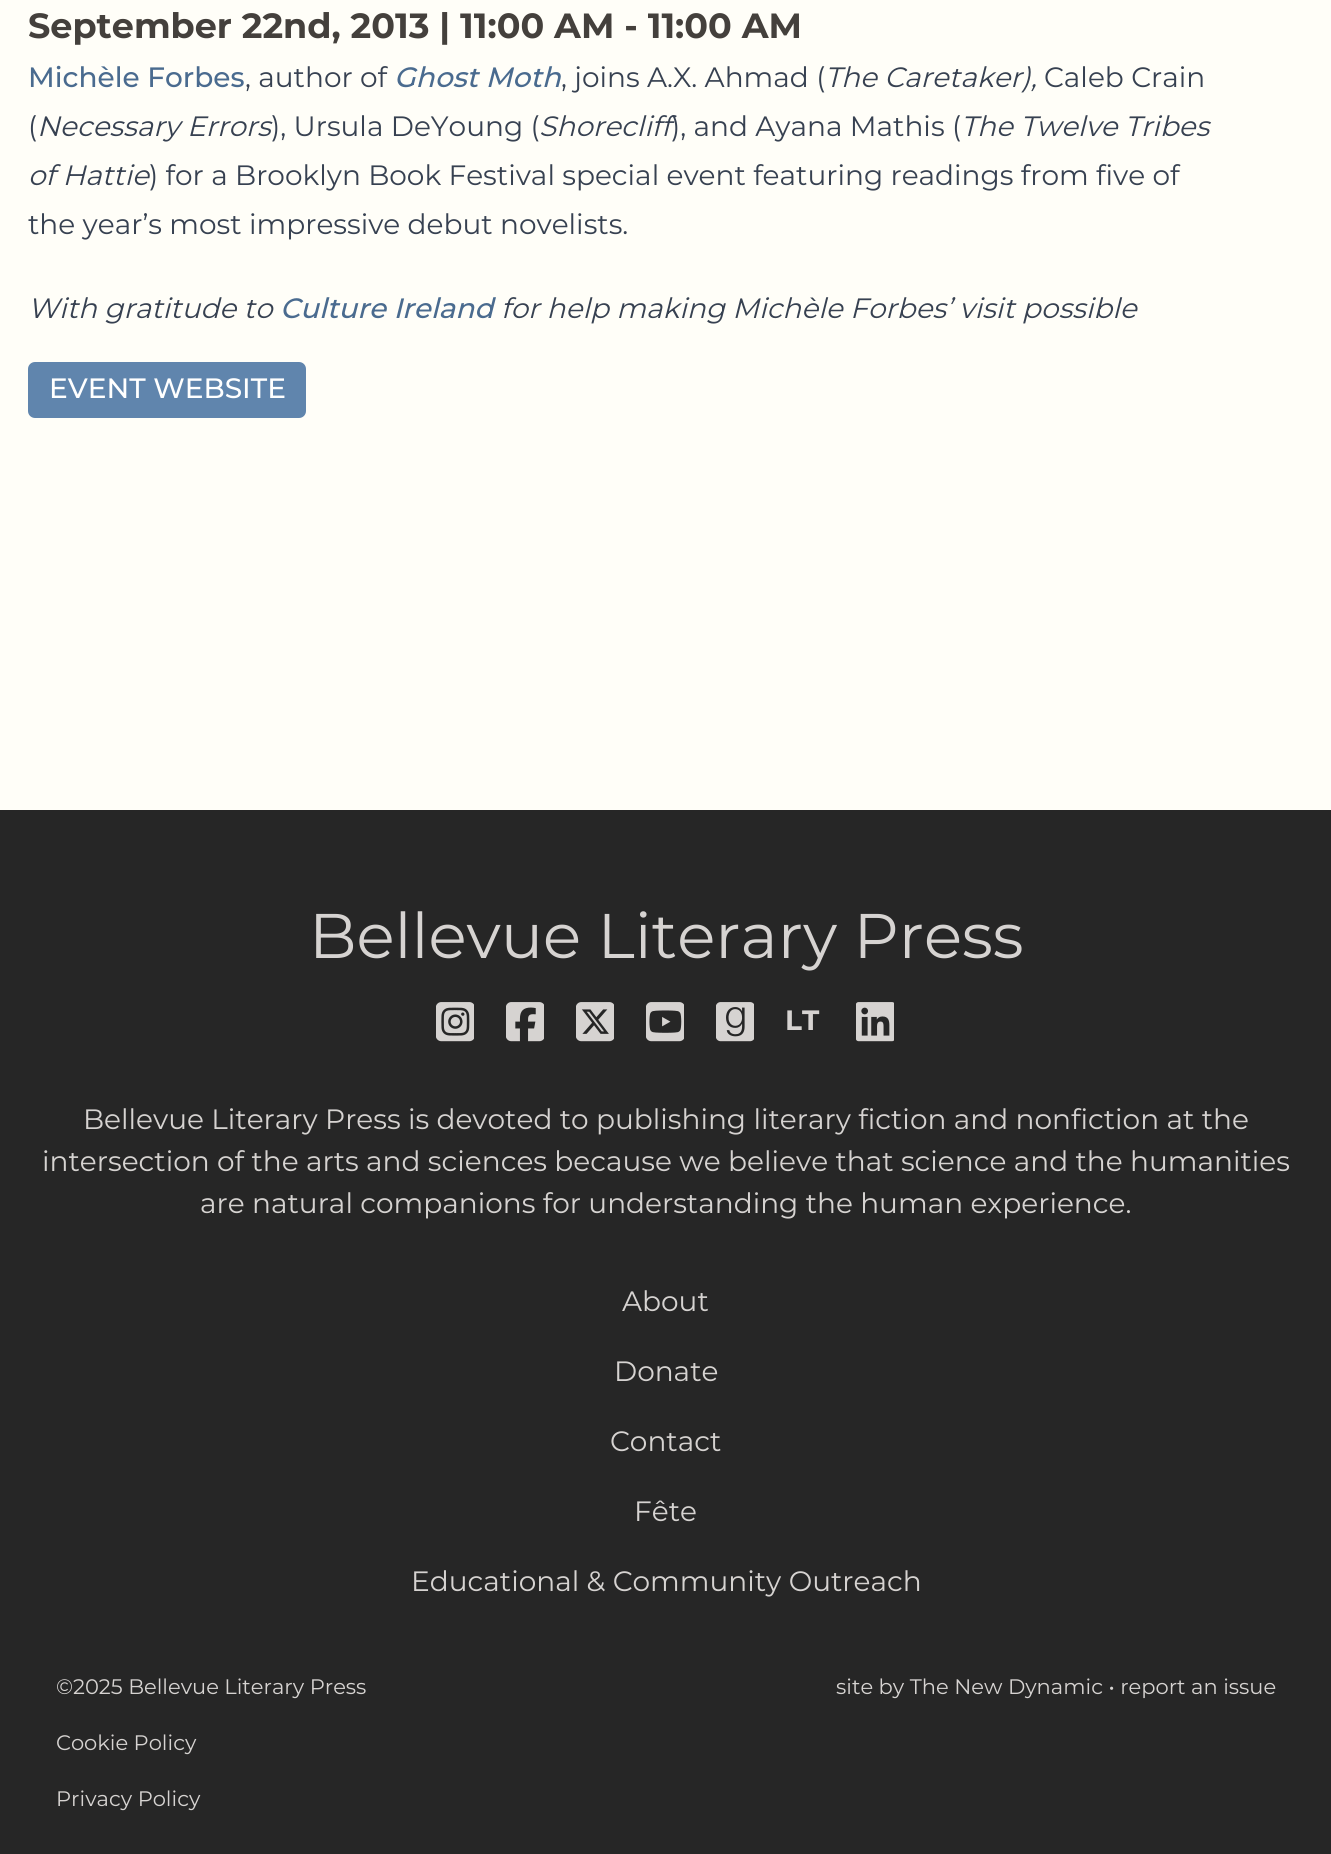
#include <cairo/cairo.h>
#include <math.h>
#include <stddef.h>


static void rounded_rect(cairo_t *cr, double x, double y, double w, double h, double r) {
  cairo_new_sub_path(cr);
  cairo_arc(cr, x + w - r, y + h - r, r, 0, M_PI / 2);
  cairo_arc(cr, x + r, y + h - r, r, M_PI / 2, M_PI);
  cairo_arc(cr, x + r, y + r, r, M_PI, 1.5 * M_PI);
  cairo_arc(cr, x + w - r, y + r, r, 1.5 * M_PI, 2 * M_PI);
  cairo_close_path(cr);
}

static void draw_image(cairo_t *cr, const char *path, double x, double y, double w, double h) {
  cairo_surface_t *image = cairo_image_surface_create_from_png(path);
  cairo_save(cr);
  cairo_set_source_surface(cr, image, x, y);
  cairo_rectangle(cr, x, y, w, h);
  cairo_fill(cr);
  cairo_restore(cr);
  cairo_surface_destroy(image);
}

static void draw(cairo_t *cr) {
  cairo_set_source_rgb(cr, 1, 254 / 255.0, 248 / 255.0);
  cairo_paint(cr);
  cairo_set_source_rgb(cr, 96 / 255.0, 133 / 255.0, 173 / 255.0);
  rounded_rect(cr, 28, 362, 278, 56, 7);
  cairo_fill(cr);
  cairo_set_source_rgb(cr, 38 / 255.0, 38 / 255.0, 38 / 255.0);
  cairo_rectangle(cr, 0, 810, 1331, 1044);
  cairo_fill(cr);
  draw_image(cr, "images/1.png", 436, 1002, 38, 40);
  draw_image(cr, "images/2.png", 506, 1002, 38, 40);
  draw_image(cr, "images/3.png", 576, 1002, 38, 40);
  draw_image(cr, "images/4.png", 646, 1002, 38, 40);
  draw_image(cr, "images/5.png", 716, 1002, 38, 40);
  draw_image(cr, "images/6.png", 856, 1002, 38, 40);
  cairo_select_font_face(cr, "Montserrat", CAIRO_FONT_SLANT_NORMAL, CAIRO_FONT_WEIGHT_BOLD);
  cairo_set_font_size(cr, 35);
  cairo_set_source_rgb(cr, 68 / 255.0, 64 / 255.0, 60 / 255.0);
  cairo_move_to(cr, 28, 38);
  cairo_show_text(cr, "September 22nd, 2013 | 11:00 AM - 11:00 AM");
  cairo_select_font_face(cr, "Montserrat Medium", CAIRO_FONT_SLANT_NORMAL, CAIRO_FONT_WEIGHT_NORMAL);
  cairo_set_font_size(cr, 28);
  cairo_set_source_rgb(cr, 74 / 255.0, 107 / 255.0, 143 / 255.0);
  cairo_move_to(cr, 28, 87);
  cairo_show_text(cr, "Michèle Forbes");
  cairo_select_font_face(cr, "Montserrat", CAIRO_FONT_SLANT_NORMAL, CAIRO_FONT_WEIGHT_NORMAL);
  cairo_set_source_rgb(cr, 55 / 255.0, 65 / 255.0, 81 / 255.0);
  cairo_move_to(cr, 245, 87);
  cairo_show_text(cr, ", author of");
  cairo_select_font_face(cr, "Montserrat Medium", CAIRO_FONT_SLANT_ITALIC, CAIRO_FONT_WEIGHT_NORMAL);
  cairo_set_source_rgb(cr, 74 / 255.0, 107 / 255.0, 143 / 255.0);
  cairo_move_to(cr, 394, 87);
  cairo_show_text(cr, "Ghost Moth");
  cairo_select_font_face(cr, "Montserrat", CAIRO_FONT_SLANT_NORMAL, CAIRO_FONT_WEIGHT_NORMAL);
  cairo_set_source_rgb(cr, 55 / 255.0, 65 / 255.0, 81 / 255.0);
  cairo_move_to(cr, 561, 87);
  cairo_show_text(cr, ", joins A.X. Ahmad (");
  cairo_select_font_face(cr, "Montserrat", CAIRO_FONT_SLANT_ITALIC, CAIRO_FONT_WEIGHT_NORMAL);
  cairo_move_to(cr, 825, 87);
  cairo_show_text(cr, "The Caretaker),");
  cairo_select_font_face(cr, "Montserrat", CAIRO_FONT_SLANT_NORMAL, CAIRO_FONT_WEIGHT_NORMAL);
  cairo_move_to(cr, 1044, 87);
  cairo_show_text(cr, "Caleb Crain");
  cairo_move_to(cr, 28, 136);
  cairo_show_text(cr, "(");
  cairo_select_font_face(cr, "Montserrat", CAIRO_FONT_SLANT_ITALIC, CAIRO_FONT_WEIGHT_NORMAL);
  cairo_move_to(cr, 37, 136);
  cairo_show_text(cr, "Necessary Errors");
  cairo_select_font_face(cr, "Montserrat", CAIRO_FONT_SLANT_NORMAL, CAIRO_FONT_WEIGHT_NORMAL);
  cairo_move_to(cr, 271, 136);
  cairo_show_text(cr, "), Ursula DeYoung (");
  cairo_select_font_face(cr, "Montserrat", CAIRO_FONT_SLANT_ITALIC, CAIRO_FONT_WEIGHT_NORMAL);
  cairo_move_to(cr, 539, 136);
  cairo_show_text(cr, "Shorecliff");
  cairo_select_font_face(cr, "Montserrat", CAIRO_FONT_SLANT_NORMAL, CAIRO_FONT_WEIGHT_NORMAL);
  cairo_move_to(cr, 671, 136);
  cairo_show_text(cr, "), and Ayana Mathis (");
  cairo_select_font_face(cr, "Montserrat", CAIRO_FONT_SLANT_ITALIC, CAIRO_FONT_WEIGHT_NORMAL);
  cairo_move_to(cr, 961, 136);
  cairo_show_text(cr, "The Twelve Tribes");
  cairo_move_to(cr, 28, 185);
  cairo_show_text(cr, "of Hattie");
  cairo_select_font_face(cr, "Montserrat", CAIRO_FONT_SLANT_NORMAL, CAIRO_FONT_WEIGHT_NORMAL);
  cairo_move_to(cr, 149, 185);
  cairo_show_text(cr, ") for a Brooklyn Book Festival special event featuring readings from five of");
  cairo_move_to(cr, 28, 234);
  cairo_show_text(cr, "the year’s most impressive debut novelists.");
  cairo_select_font_face(cr, "Montserrat", CAIRO_FONT_SLANT_ITALIC, CAIRO_FONT_WEIGHT_NORMAL);
  cairo_move_to(cr, 28, 318);
  cairo_show_text(cr, "With gratitude to");
  cairo_select_font_face(cr, "Montserrat Medium", CAIRO_FONT_SLANT_ITALIC, CAIRO_FONT_WEIGHT_NORMAL);
  cairo_set_source_rgb(cr, 74 / 255.0, 107 / 255.0, 143 / 255.0);
  cairo_move_to(cr, 280, 318);
  cairo_show_text(cr, "Culture Ireland");
  cairo_select_font_face(cr, "Montserrat", CAIRO_FONT_SLANT_ITALIC, CAIRO_FONT_WEIGHT_NORMAL);
  cairo_set_source_rgb(cr, 55 / 255.0, 65 / 255.0, 81 / 255.0);
  cairo_move_to(cr, 501, 318);
  cairo_show_text(cr, "for help making Michèle Forbes’ visit possible");
  cairo_select_font_face(cr, "Montserrat Medium", CAIRO_FONT_SLANT_NORMAL, CAIRO_FONT_WEIGHT_NORMAL);
  cairo_set_source_rgb(cr, 1, 1, 1);
  cairo_move_to(cr, 49, 398);
  cairo_show_text(cr, "EVENT WEBSITE");
  cairo_select_font_face(cr, "Montserrat", CAIRO_FONT_SLANT_NORMAL, CAIRO_FONT_WEIGHT_NORMAL);
  cairo_set_font_size(cr, 63);
  cairo_set_source_rgb(cr, 214 / 255.0, 211 / 255.0, 209 / 255.0);
  cairo_move_to(cr, 309, 958);
  cairo_show_text(cr, "Bellevue Literary Press");
  cairo_select_font_face(cr, "Montserrat", CAIRO_FONT_SLANT_NORMAL, CAIRO_FONT_WEIGHT_BOLD);
  cairo_set_font_size(cr, 28);
  cairo_move_to(cr, 785, 1030);
  cairo_show_text(cr, "LT");
  cairo_select_font_face(cr, "Montserrat", CAIRO_FONT_SLANT_NORMAL, CAIRO_FONT_WEIGHT_NORMAL);
  cairo_move_to(cr, 83, 1129);
  cairo_show_text(cr, "Bellevue Literary Press is devoted to publishing literary fiction and nonfiction at the");
  cairo_move_to(cr, 42, 1171);
  cairo_show_text(cr, "intersection of the arts and sciences because we believe that science and the humanities");
  cairo_move_to(cr, 200, 1213);
  cairo_show_text(cr, "are natural companions for understanding the human experience.");
  cairo_move_to(cr, 622, 1311);
  cairo_show_text(cr, "About");
  cairo_move_to(cr, 614, 1381);
  cairo_show_text(cr, "Donate");
  cairo_move_to(cr, 610, 1451);
  cairo_show_text(cr, "Contact");
  cairo_move_to(cr, 634, 1521);
  cairo_show_text(cr, "Fête");
  cairo_move_to(cr, 411, 1591);
  cairo_show_text(cr, "Educational & Community Outreach");
  cairo_set_font_size(cr, 21);
  cairo_move_to(cr, 56, 1694);
  cairo_show_text(cr, "©2025 Bellevue Literary Press");
  cairo_move_to(cr, 56, 1750);
  cairo_show_text(cr, "Cookie Policy");
  cairo_move_to(cr, 56, 1806);
  cairo_show_text(cr, "Privacy Policy");
  cairo_move_to(cr, 836, 1694);
  cairo_show_text(cr, "site by The New Dynamic • report an issue");
}

int main(void) {
  cairo_surface_t *surface = cairo_image_surface_create(CAIRO_FORMAT_RGB24, 1331, 1854);
  cairo_t *cr = cairo_create(surface);
  cairo_font_options_t *options = cairo_font_options_create();
  cairo_font_options_set_hint_metrics(options, CAIRO_HINT_METRICS_OFF);
  cairo_font_options_set_hint_style(options, CAIRO_HINT_STYLE_NONE);
  cairo_set_font_options(cr, options);
  cairo_set_miter_limit(cr, 4);
  draw(cr);
  cairo_surface_write_to_png(surface, "out.png");
  cairo_font_options_destroy(options);
  cairo_destroy(cr);
  cairo_surface_destroy(surface);
  return 0;
}
